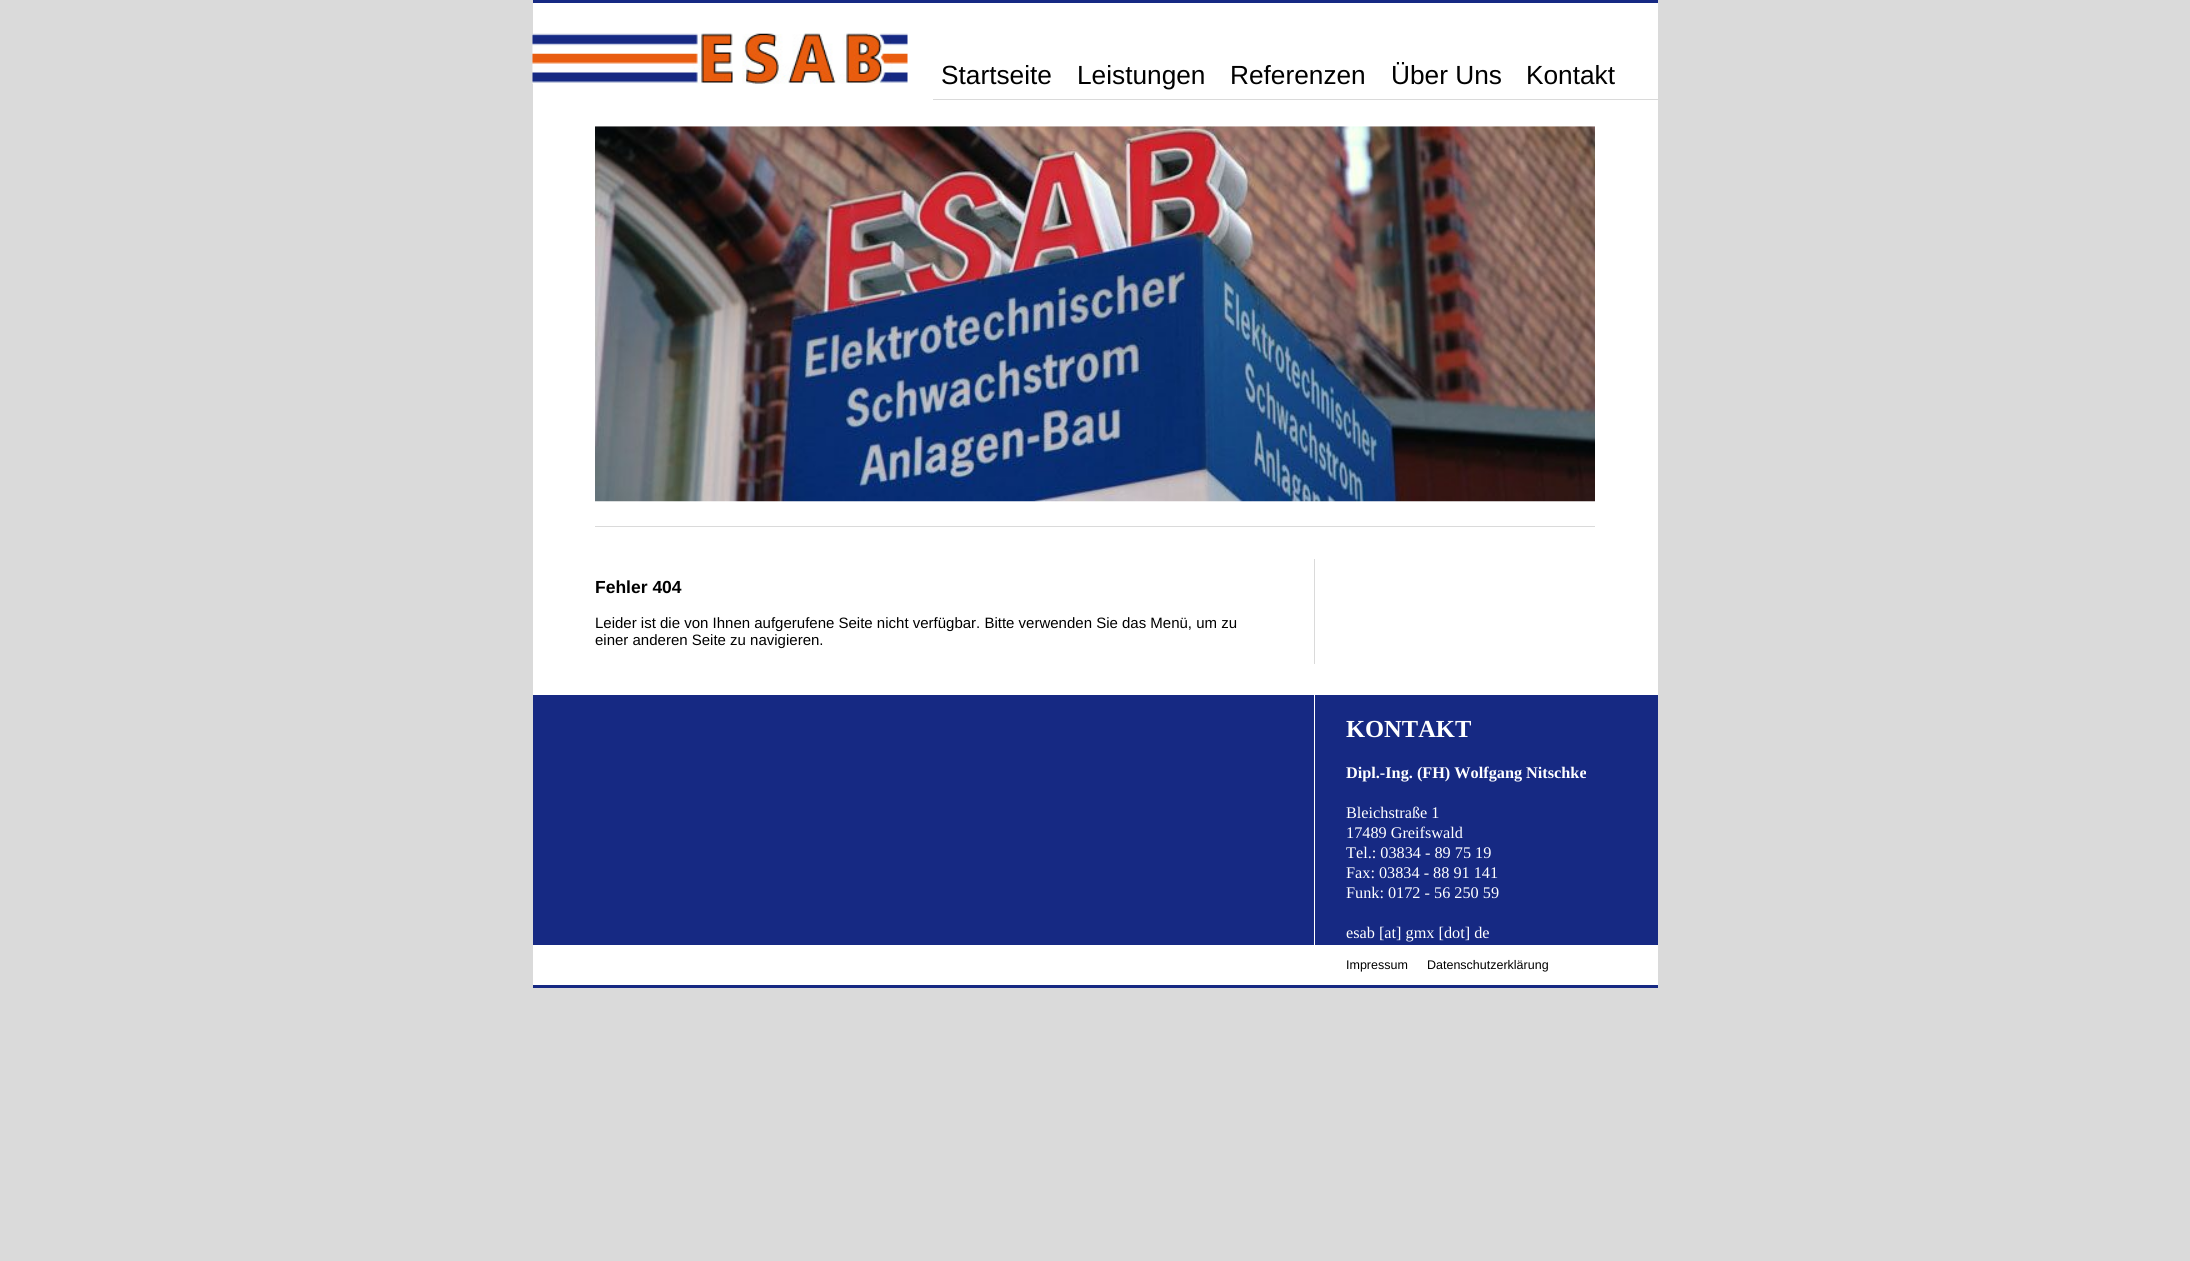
#include <cairo/cairo.h>
#include <math.h>
#include <stddef.h>


static void draw_image(cairo_t *cr, const char *path, double x, double y, double w, double h) {
  cairo_surface_t *image = cairo_image_surface_create_from_png(path);
  cairo_save(cr);
  cairo_set_source_surface(cr, image, x, y);
  cairo_rectangle(cr, x, y, w, h);
  cairo_fill(cr);
  cairo_restore(cr);
  cairo_surface_destroy(image);
}

static void draw(cairo_t *cr) {
  cairo_set_source_rgb(cr, 218 / 255.0, 218 / 255.0, 218 / 255.0);
  cairo_paint(cr);
  cairo_set_source_rgb(cr, 1, 1, 1);
  cairo_rectangle(cr, 533, 3, 1125, 692);
  cairo_fill(cr);
  cairo_set_source_rgb(cr, 22 / 255.0, 41 / 255.0, 131 / 255.0);
  cairo_rectangle(cr, 533, 0, 1125, 3);
  cairo_fill(cr);
  draw_image(cr, "images/1.png", 532, 33, 376, 51);
  cairo_set_source_rgb(cr, 218 / 255.0, 218 / 255.0, 218 / 255.0);
  cairo_rectangle(cr, 933, 99, 725, 1);
  cairo_fill(cr);
  cairo_rectangle(cr, 595, 526, 1000, 1);
  cairo_fill(cr);
  draw_image(cr, "images/2.png", 595, 126, 1000, 376);
  cairo_rectangle(cr, 1314, 559, 1, 105);
  cairo_fill(cr);
  cairo_set_source_rgb(cr, 22 / 255.0, 41 / 255.0, 131 / 255.0);
  cairo_rectangle(cr, 533, 695, 1125, 250);
  cairo_fill(cr);
  cairo_set_source_rgb(cr, 1, 1, 1);
  cairo_rectangle(cr, 1314, 695, 1, 250);
  cairo_fill(cr);
  cairo_rectangle(cr, 533, 945, 1125, 40);
  cairo_fill(cr);
  cairo_set_source_rgb(cr, 22 / 255.0, 41 / 255.0, 131 / 255.0);
  cairo_rectangle(cr, 533, 985, 1125, 3);
  cairo_fill(cr);
  cairo_select_font_face(cr, "Liberation Sans", CAIRO_FONT_SLANT_NORMAL, CAIRO_FONT_WEIGHT_NORMAL);
  cairo_set_font_size(cr, 26.25);
  cairo_set_source_rgb(cr, 0, 0, 0);
  cairo_move_to(cr, 941, 84);
  cairo_show_text(cr, "Startseite");
  cairo_move_to(cr, 1077, 84);
  cairo_show_text(cr, "Leistungen");
  cairo_move_to(cr, 1230, 84);
  cairo_show_text(cr, "Referenzen");
  cairo_move_to(cr, 1391, 84);
  cairo_show_text(cr, "Über Uns");
  cairo_move_to(cr, 1526, 84);
  cairo_show_text(cr, "Kontakt");
  cairo_select_font_face(cr, "Liberation Sans", CAIRO_FONT_SLANT_NORMAL, CAIRO_FONT_WEIGHT_BOLD);
  cairo_set_font_size(cr, 17.5);
  cairo_move_to(cr, 595, 593);
  cairo_show_text(cr, "Fehler 404");
  cairo_select_font_face(cr, "Liberation Sans", CAIRO_FONT_SLANT_NORMAL, CAIRO_FONT_WEIGHT_NORMAL);
  cairo_set_font_size(cr, 15);
  cairo_move_to(cr, 595, 628);
  cairo_show_text(cr, "Leider ist die von Ihnen aufgerufene Seite nicht verfügbar. Bitte verwenden Sie das Menü, um zu");
  cairo_move_to(cr, 595, 645);
  cairo_show_text(cr, "einer anderen Seite zu navigieren.");
  cairo_select_font_face(cr, "Liberation Serif", CAIRO_FONT_SLANT_NORMAL, CAIRO_FONT_WEIGHT_BOLD);
  cairo_set_font_size(cr, 24.5);
  cairo_set_source_rgb(cr, 1, 1, 1);
  cairo_move_to(cr, 1346, 737);
  cairo_show_text(cr, "KONTAKT");
  cairo_set_font_size(cr, 16.25);
  cairo_move_to(cr, 1346, 778);
  cairo_show_text(cr, "Dipl.-Ing. (FH) Wolfgang Nitschke");
  cairo_select_font_face(cr, "Liberation Serif", CAIRO_FONT_SLANT_NORMAL, CAIRO_FONT_WEIGHT_NORMAL);
  cairo_move_to(cr, 1346, 818);
  cairo_show_text(cr, "Bleichstraße 1");
  cairo_move_to(cr, 1346, 838);
  cairo_show_text(cr, "17489 Greifswald");
  cairo_move_to(cr, 1346, 858);
  cairo_show_text(cr, "Tel.: 03834 - 89 75 19");
  cairo_move_to(cr, 1346, 878);
  cairo_show_text(cr, "Fax: 03834 - 88 91 141");
  cairo_move_to(cr, 1346, 898);
  cairo_show_text(cr, "Funk: 0172 - 56 250 59");
  cairo_move_to(cr, 1346, 938);
  cairo_show_text(cr, "esab [at] gmx [dot] de");
  cairo_select_font_face(cr, "Liberation Sans", CAIRO_FONT_SLANT_NORMAL, CAIRO_FONT_WEIGHT_NORMAL);
  cairo_set_font_size(cr, 12.5);
  cairo_set_source_rgb(cr, 0, 0, 0);
  cairo_move_to(cr, 1346, 969);
  cairo_show_text(cr, "Impressum");
  cairo_move_to(cr, 1427, 969);
  cairo_show_text(cr, "Datenschutzerklärung");
}

int main(void) {
  cairo_surface_t *surface = cairo_image_surface_create(CAIRO_FORMAT_RGB24, 2190, 1261);
  cairo_t *cr = cairo_create(surface);
  cairo_font_options_t *options = cairo_font_options_create();
  cairo_font_options_set_hint_metrics(options, CAIRO_HINT_METRICS_OFF);
  cairo_font_options_set_hint_style(options, CAIRO_HINT_STYLE_NONE);
  cairo_set_font_options(cr, options);
  cairo_set_miter_limit(cr, 4);
  draw(cr);
  cairo_surface_write_to_png(surface, "out.png");
  cairo_font_options_destroy(options);
  cairo_destroy(cr);
  cairo_surface_destroy(surface);
  return 0;
}
